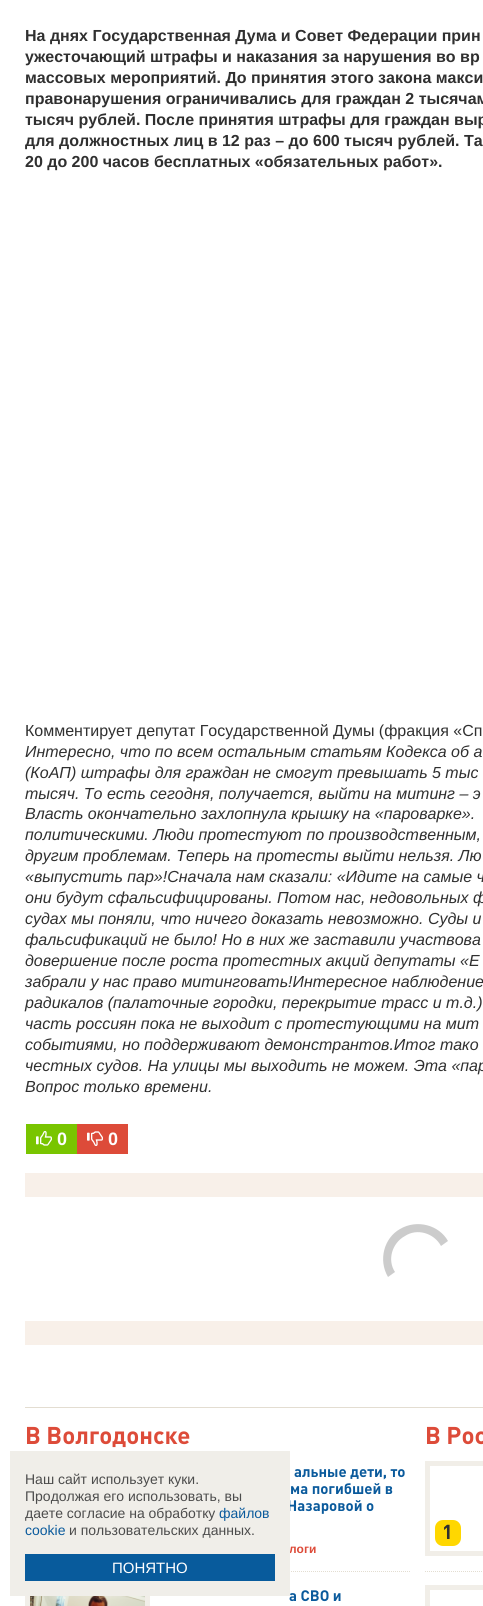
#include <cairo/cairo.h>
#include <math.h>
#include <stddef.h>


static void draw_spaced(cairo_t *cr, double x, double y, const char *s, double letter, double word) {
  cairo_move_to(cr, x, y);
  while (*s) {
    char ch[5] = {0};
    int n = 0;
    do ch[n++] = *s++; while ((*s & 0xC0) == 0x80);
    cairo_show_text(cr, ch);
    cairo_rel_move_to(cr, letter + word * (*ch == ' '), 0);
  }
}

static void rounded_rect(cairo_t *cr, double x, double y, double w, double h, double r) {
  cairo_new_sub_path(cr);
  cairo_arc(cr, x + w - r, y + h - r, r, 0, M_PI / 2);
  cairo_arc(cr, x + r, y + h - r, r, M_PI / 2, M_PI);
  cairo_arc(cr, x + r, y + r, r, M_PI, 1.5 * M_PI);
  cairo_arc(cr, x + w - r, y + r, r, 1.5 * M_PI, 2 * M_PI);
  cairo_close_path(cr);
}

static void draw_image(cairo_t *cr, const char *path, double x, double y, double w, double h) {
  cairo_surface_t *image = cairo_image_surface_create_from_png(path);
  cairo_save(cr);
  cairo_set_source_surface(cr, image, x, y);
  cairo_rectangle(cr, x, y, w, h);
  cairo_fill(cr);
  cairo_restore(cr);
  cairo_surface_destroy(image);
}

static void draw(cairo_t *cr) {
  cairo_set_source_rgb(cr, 1, 1, 1);
  cairo_paint(cr);
  cairo_set_source_rgb(cr, 121 / 255.0, 197 / 255.0, 0);
  cairo_rectangle(cr, 26, 1124, 51, 30);
  cairo_fill(cr);
  draw_image(cr, "images/1.png", 36, 1131, 16, 15);
  cairo_set_source_rgb(cr, 221 / 255.0, 75 / 255.0, 57 / 255.0);
  cairo_rectangle(cr, 77, 1124, 51, 30);
  cairo_fill(cr);
  draw_image(cr, "images/2.png", 87, 1131, 16, 15);
  cairo_set_source_rgb(cr, 248 / 255.0, 240 / 255.0, 233 / 255.0);
  cairo_rectangle(cr, 25, 1173, 458, 24);
  cairo_fill(cr);
  cairo_set_source_rgb(cr, 204 / 255.0, 204 / 255.0, 204 / 255.0);
  cairo_new_path(cr);
  cairo_move_to(cr, 448, 1241);
  cairo_curve_to(cr, 439, 1225, 417, 1219, 400, 1229);
  cairo_curve_to(cr, 384, 1238, 378, 1260, 388, 1277);
  cairo_line_to(cr, 395, 1272);
  cairo_curve_to(cr, 387, 1260, 392, 1243, 405, 1236);
  cairo_curve_to(cr, 417, 1228, 434, 1233, 441, 1246);
  cairo_close_path(cr);
  cairo_fill(cr);
  cairo_set_source_rgb(cr, 248 / 255.0, 240 / 255.0, 233 / 255.0);
  cairo_rectangle(cr, 25, 1321, 458, 24);
  cairo_fill(cr);
  cairo_set_source_rgb(cr, 227 / 255.0, 221 / 255.0, 209 / 255.0);
  cairo_rectangle(cr, 25, 1407, 458, 1);
  cairo_fill(cr);
  cairo_new_path(cr);
  cairo_move_to(cr, 25, 1571.5);
  cairo_line_to(cr, 410, 1571.5);
  cairo_set_line_width(cr, 1);
  cairo_set_dash(cr, (double[]){1, 1}, 2, 0);
  cairo_stroke(cr);
  cairo_rectangle(cr, 27.5, 1587.5, 120, 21);
  cairo_set_source_rgb(cr, 241 / 255.0, 238 / 255.0, 232 / 255.0);
  cairo_set_line_width(cr, 5);
  cairo_set_dash(cr, NULL, 0, 0);
  cairo_stroke(cr);
  draw_image(cr, "images/3.png", 30, 1596, 115, 10);
  cairo_new_path(cr);
  cairo_move_to(cr, 425, 1571.5);
  cairo_line_to(cr, 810, 1571.5);
  cairo_set_source_rgb(cr, 227 / 255.0, 221 / 255.0, 209 / 255.0);
  cairo_set_line_width(cr, 1);
  cairo_set_dash(cr, (double[]){1, 1}, 2, 0);
  cairo_stroke(cr);
  cairo_rectangle(cr, 427.5, 1463.5, 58, 90);
  cairo_set_source_rgb(cr, 241 / 255.0, 238 / 255.0, 232 / 255.0);
  cairo_set_line_width(cr, 5);
  cairo_set_dash(cr, NULL, 0, 0);
  cairo_stroke(cr);
  cairo_set_source_rgb(cr, 1, 215 / 255.0, 0);
  rounded_rect(cr, 435, 1520, 26, 26, 8);
  cairo_fill(cr);
  cairo_rectangle(cr, 427.5, 1587.5, 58, 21);
  cairo_set_source_rgb(cr, 241 / 255.0, 238 / 255.0, 232 / 255.0);
  cairo_stroke(cr);
  cairo_select_font_face(cr, "Liberation Sans", CAIRO_FONT_SLANT_NORMAL, CAIRO_FONT_WEIGHT_BOLD);
  cairo_set_font_size(cr, 16);
  cairo_set_source_rgb(cr, 48 / 255.0, 48 / 255.0, 48 / 255.0);
  cairo_move_to(cr, 25, 41);
  cairo_show_text(cr, "На днях Государственная Дума и Совет Федерации прин");
  cairo_move_to(cr, 25, 62);
  cairo_show_text(cr, "ужесточающий штрафы и наказания за нарушения во вр");
  cairo_move_to(cr, 25, 83);
  cairo_show_text(cr, "массовых мероприятий. До принятия этого закона макси");
  cairo_move_to(cr, 25, 104);
  cairo_show_text(cr, "правонарушения ограничивались для граждан 2 тысячам");
  cairo_move_to(cr, 25, 125);
  cairo_show_text(cr, "тысяч рублей. После принятия штрафы для граждан выр");
  cairo_move_to(cr, 25, 146);
  cairo_show_text(cr, "для должностных лиц в 12 раз – до 600 тысяч рублей. Та");
  cairo_move_to(cr, 25, 167);
  cairo_show_text(cr, "20 до 200 часов бесплатных «обязательных работ».");
  cairo_select_font_face(cr, "Liberation Sans", CAIRO_FONT_SLANT_NORMAL, CAIRO_FONT_WEIGHT_NORMAL);
  cairo_move_to(cr, 25, 736);
  cairo_show_text(cr, "Комментирует депутат Государственной Думы (фракция «Сп");
  cairo_select_font_face(cr, "Liberation Sans", CAIRO_FONT_SLANT_ITALIC, CAIRO_FONT_WEIGHT_NORMAL);
  cairo_move_to(cr, 25, 757);
  cairo_show_text(cr, "Интересно, что по всем остальным статьям Кодекса об а");
  cairo_move_to(cr, 25, 778);
  cairo_show_text(cr, "(КоАП) штрафы для граждан не смогут превышать 5 тыс");
  cairo_move_to(cr, 25, 799);
  cairo_show_text(cr, "тысяч. То есть сегодня, получается, выйти на митинг – э");
  cairo_move_to(cr, 25, 819);
  cairo_show_text(cr, "Власть окончательно захлопнула крышку на «пароварке».");
  cairo_move_to(cr, 25, 840);
  cairo_show_text(cr, "политическими. Люди протестуют по производственным,");
  cairo_move_to(cr, 25, 861);
  cairo_show_text(cr, "другим проблемам. Теперь на протесты выйти нельзя. Лю");
  cairo_move_to(cr, 25, 882);
  cairo_show_text(cr, "«выпустить пар»!Сначала нам сказали: «Идите на самые ч");
  cairo_move_to(cr, 25, 903);
  cairo_show_text(cr, "они будут сфальсифицированы. Потом нас, недовольных ф");
  cairo_move_to(cr, 25, 924);
  cairo_show_text(cr, "судах мы поняли, что ничего доказать невозможно. Суды и");
  cairo_move_to(cr, 25, 945);
  cairo_show_text(cr, "фальсификаций не было! Но в них же заставили участвова");
  cairo_move_to(cr, 25, 966);
  cairo_show_text(cr, "довершение после роста протестных акций депутаты «Е");
  cairo_move_to(cr, 25, 987);
  cairo_show_text(cr, "забрали у нас право митинговать!Интересное наблюдение");
  cairo_move_to(cr, 25, 1008);
  cairo_show_text(cr, "радикалов (палаточные городки, перекрытие трасс и т.д.)");
  cairo_move_to(cr, 25, 1029);
  cairo_show_text(cr, "часть россиян пока не выходит с протестующими на мит");
  cairo_move_to(cr, 25, 1050);
  cairo_show_text(cr, "событиями, но поддерживают демонстрантов.Итог тако");
  cairo_move_to(cr, 25, 1071);
  cairo_show_text(cr, "честных судов. На улицы мы выходить не можем. Эта «пар");
  cairo_move_to(cr, 25, 1092);
  cairo_show_text(cr, "Вопрос только времени.");
  cairo_select_font_face(cr, "Liberation Sans", CAIRO_FONT_SLANT_NORMAL, CAIRO_FONT_WEIGHT_BOLD);
  cairo_set_font_size(cr, 18);
  cairo_set_source_rgb(cr, 1, 1, 1);
  cairo_move_to(cr, 57, 1145);
  cairo_show_text(cr, "0");
  cairo_move_to(cr, 108, 1145);
  cairo_show_text(cr, "0");
  cairo_select_font_face(cr, "DIN", CAIRO_FONT_SLANT_NORMAL, CAIRO_FONT_WEIGHT_BOLD);
  cairo_set_font_size(cr, 24);
  cairo_set_source_rgb(cr, 221 / 255.0, 75 / 255.0, 57 / 255.0);
  cairo_move_to(cr, 25, 1444);
  cairo_show_text(cr, "В Волгодонске");
  cairo_set_font_size(cr, 15);
  cairo_set_source_rgb(cr, 10 / 255.0, 90 / 255.0, 156 / 255.0);
  cairo_move_to(cr, 294, 1477);
  cairo_show_text(cr, "альные дети, то");
  cairo_move_to(cr, 290, 1494);
  cairo_show_text(cr, "ма погибшей в");
  cairo_move_to(cr, 287, 1511);
  cairo_show_text(cr, "Назаровой о");
  cairo_select_font_face(cr, "Liberation Sans", CAIRO_FONT_SLANT_NORMAL, CAIRO_FONT_WEIGHT_BOLD);
  cairo_set_font_size(cr, 12);
  cairo_set_source_rgb(cr, 221 / 255.0, 75 / 255.0, 57 / 255.0);
  cairo_move_to(cr, 289, 1553);
  cairo_show_text(cr, "логи");
  cairo_select_font_face(cr, "DIN", CAIRO_FONT_SLANT_NORMAL, CAIRO_FONT_WEIGHT_BOLD);
  cairo_set_font_size(cr, 15);
  cairo_set_source_rgb(cr, 10 / 255.0, 90 / 255.0, 156 / 255.0);
  cairo_move_to(cr, 289, 1601);
  cairo_show_text(cr, "а СВО и");
  cairo_set_font_size(cr, 24);
  cairo_set_source_rgb(cr, 221 / 255.0, 75 / 255.0, 57 / 255.0);
  cairo_move_to(cr, 425, 1444);
  cairo_show_text(cr, "В Рос");
  cairo_set_font_size(cr, 20);
  cairo_set_source_rgb(cr, 48 / 255.0, 48 / 255.0, 48 / 255.0);
  draw_spaced(cr, 442, 1539, "1", -1, 0);
  cairo_set_source_rgb(cr, 240 / 255.0, 238 / 255.0, 233 / 255.0);
  cairo_rectangle(cr, 10, 1451, 280, 145);
  cairo_fill(cr);
  cairo_select_font_face(cr, "Liberation Sans", CAIRO_FONT_SLANT_NORMAL, CAIRO_FONT_WEIGHT_NORMAL);
  cairo_set_font_size(cr, 14);
  cairo_set_source_rgb(cr, 76 / 255.0, 76 / 255.0, 76 / 255.0);
  cairo_move_to(cr, 25, 1484);
  cairo_show_text(cr, "Наш сайт использует куки.");
  cairo_move_to(cr, 25, 1501);
  cairo_show_text(cr, "Продолжая его использовать, вы");
  cairo_move_to(cr, 25, 1518);
  cairo_show_text(cr, "даете согласие на обработку");
  cairo_set_source_rgb(cr, 10 / 255.0, 90 / 255.0, 156 / 255.0);
  cairo_move_to(cr, 219, 1518);
  cairo_show_text(cr, "файлов");
  cairo_move_to(cr, 25, 1535);
  cairo_show_text(cr, "cookie");
  cairo_set_source_rgb(cr, 76 / 255.0, 76 / 255.0, 76 / 255.0);
  cairo_move_to(cr, 69, 1535);
  cairo_show_text(cr, "и пользовательских данных.");
  cairo_set_source_rgb(cr, 8 / 255.0, 91 / 255.0, 156 / 255.0);
  cairo_rectangle(cr, 25, 1554, 250, 27);
  cairo_fill(cr);
  cairo_set_font_size(cr, 15);
  cairo_set_source_rgb(cr, 1, 1, 1);
  cairo_move_to(cr, 112, 1573);
  cairo_show_text(cr, "ПОНЯТНО");
}

int main(void) {
  cairo_surface_t *surface = cairo_image_surface_create(CAIRO_FORMAT_RGB24, 483, 1606);
  cairo_t *cr = cairo_create(surface);
  cairo_font_options_t *options = cairo_font_options_create();
  cairo_font_options_set_hint_metrics(options, CAIRO_HINT_METRICS_OFF);
  cairo_font_options_set_hint_style(options, CAIRO_HINT_STYLE_NONE);
  cairo_set_font_options(cr, options);
  cairo_set_miter_limit(cr, 4);
  draw(cr);
  cairo_surface_write_to_png(surface, "out.png");
  cairo_font_options_destroy(options);
  cairo_destroy(cr);
  cairo_surface_destroy(surface);
  return 0;
}
